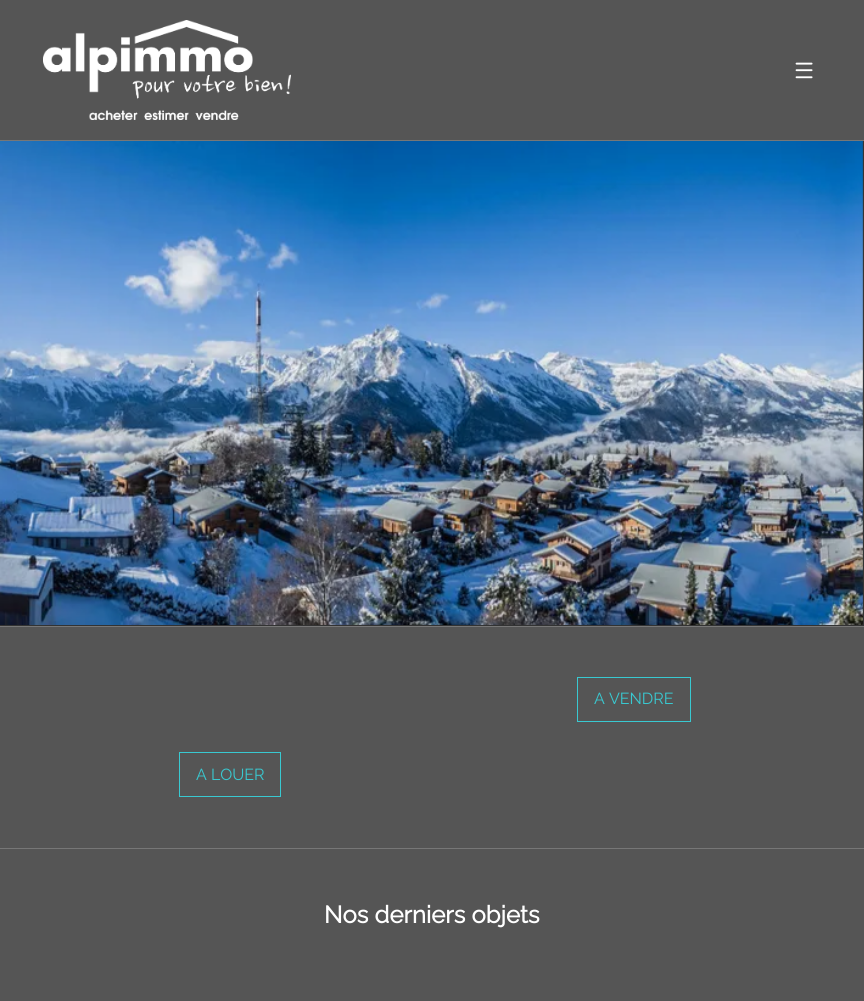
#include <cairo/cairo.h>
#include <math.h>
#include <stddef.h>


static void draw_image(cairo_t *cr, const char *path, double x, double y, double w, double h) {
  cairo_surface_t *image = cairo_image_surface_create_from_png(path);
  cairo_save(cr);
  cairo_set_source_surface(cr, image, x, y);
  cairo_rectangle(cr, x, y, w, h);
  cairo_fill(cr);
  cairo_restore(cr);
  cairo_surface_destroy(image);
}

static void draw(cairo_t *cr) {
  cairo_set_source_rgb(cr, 85 / 255.0, 85 / 255.0, 85 / 255.0);
  cairo_paint(cr);
  cairo_set_source_rgb(cr, 119 / 255.0, 119 / 255.0, 119 / 255.0);
  cairo_rectangle(cr, 0, 140, 864, 1);
  cairo_fill(cr);
  draw_image(cr, "images/1.png", 43, 20, 248, 100);
  draw_image(cr, "images/2.png", 795, 62, 18, 17);
  cairo_set_source_rgb(cr, 51 / 255.0, 51 / 255.0, 51 / 255.0);
  cairo_rectangle(cr, 0, 141, 864, 485);
  cairo_fill(cr);
  cairo_set_source_rgb(cr, 119 / 255.0, 119 / 255.0, 119 / 255.0);
  cairo_rectangle(cr, 0, 626, 864, 1);
  cairo_fill(cr);
  draw_image(cr, "images/3.png", 0, 141, 863, 484);
  cairo_rectangle(cr, 0, 848, 864, 1);
  cairo_fill(cr);
  cairo_rectangle(cr, 577.5, 677.5, 113, 44);
  cairo_set_source_rgb(cr, 57 / 255.0, 201 / 255.0, 209 / 255.0);
  cairo_set_line_width(cr, 1);
  cairo_stroke(cr);
  cairo_rectangle(cr, 179.5, 752.5, 101, 44);
  cairo_stroke(cr);
  cairo_select_font_face(cr, "Raleway Thin", CAIRO_FONT_SLANT_NORMAL, CAIRO_FONT_WEIGHT_NORMAL);
  cairo_set_font_size(cr, 16);
  cairo_move_to(cr, 594, 704);
  cairo_show_text(cr, "A VENDRE");
  cairo_move_to(cr, 196, 780);
  cairo_show_text(cr, "A LOUER");
  cairo_select_font_face(cr, "Raleway", CAIRO_FONT_SLANT_NORMAL, CAIRO_FONT_WEIGHT_BOLD);
  cairo_set_font_size(cr, 24);
  cairo_set_source_rgb(cr, 1, 1, 1);
  cairo_move_to(cr, 324, 923);
  cairo_show_text(cr, "Nos derniers objets");
}

int main(void) {
  cairo_surface_t *surface = cairo_image_surface_create(CAIRO_FORMAT_RGB24, 864, 1001);
  cairo_t *cr = cairo_create(surface);
  cairo_font_options_t *options = cairo_font_options_create();
  cairo_font_options_set_hint_metrics(options, CAIRO_HINT_METRICS_OFF);
  cairo_font_options_set_hint_style(options, CAIRO_HINT_STYLE_NONE);
  cairo_set_font_options(cr, options);
  cairo_set_miter_limit(cr, 4);
  draw(cr);
  cairo_surface_write_to_png(surface, "out.png");
  cairo_font_options_destroy(options);
  cairo_destroy(cr);
  cairo_surface_destroy(surface);
  return 0;
}
